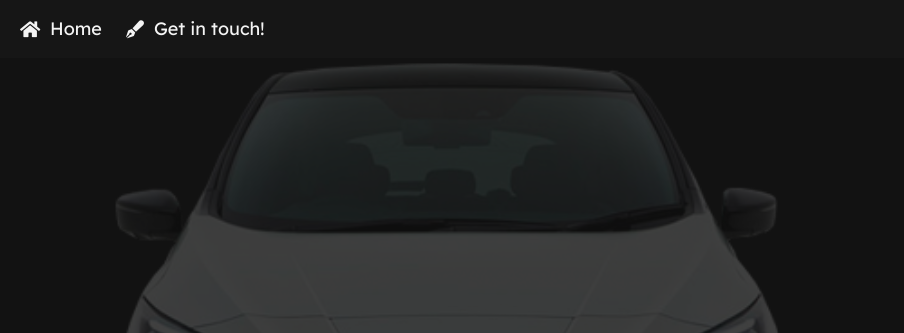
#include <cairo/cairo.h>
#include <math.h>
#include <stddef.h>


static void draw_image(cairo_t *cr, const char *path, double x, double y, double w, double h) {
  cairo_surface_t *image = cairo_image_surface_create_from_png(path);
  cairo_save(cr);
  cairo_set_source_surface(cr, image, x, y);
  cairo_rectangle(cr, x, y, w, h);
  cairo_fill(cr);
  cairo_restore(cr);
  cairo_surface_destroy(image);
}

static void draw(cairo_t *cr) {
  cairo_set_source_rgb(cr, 22 / 255.0, 22 / 255.0, 22 / 255.0);
  cairo_paint(cr);
  cairo_set_source_rgb(cr, 18 / 255.0, 18 / 255.0, 18 / 255.0);
  cairo_rectangle(cr, 0, 58, 904, 275);
  cairo_fill(cr);
  draw_image(cr, "images/1.png", 20, 21, 21, 17);
  draw_image(cr, "images/2.png", 126, 20, 18, 19);
  draw_image(cr, "images/3.png", 115, 63, 665, 270);
  cairo_select_font_face(cr, "Readex Pro", CAIRO_FONT_SLANT_NORMAL, CAIRO_FONT_WEIGHT_NORMAL);
  cairo_set_font_size(cr, 18);
  cairo_set_source_rgb(cr, 244 / 255.0, 244 / 255.0, 244 / 255.0);
  cairo_move_to(cr, 50, 35);
  cairo_show_text(cr, "Home");
  cairo_move_to(cr, 154, 35);
  cairo_show_text(cr, "Get in touch!");
}

int main(void) {
  cairo_surface_t *surface = cairo_image_surface_create(CAIRO_FORMAT_RGB24, 904, 333);
  cairo_t *cr = cairo_create(surface);
  cairo_font_options_t *options = cairo_font_options_create();
  cairo_font_options_set_hint_metrics(options, CAIRO_HINT_METRICS_OFF);
  cairo_font_options_set_hint_style(options, CAIRO_HINT_STYLE_NONE);
  cairo_set_font_options(cr, options);
  cairo_set_miter_limit(cr, 4);
  draw(cr);
  cairo_surface_write_to_png(surface, "out.png");
  cairo_font_options_destroy(options);
  cairo_destroy(cr);
  cairo_surface_destroy(surface);
  return 0;
}
